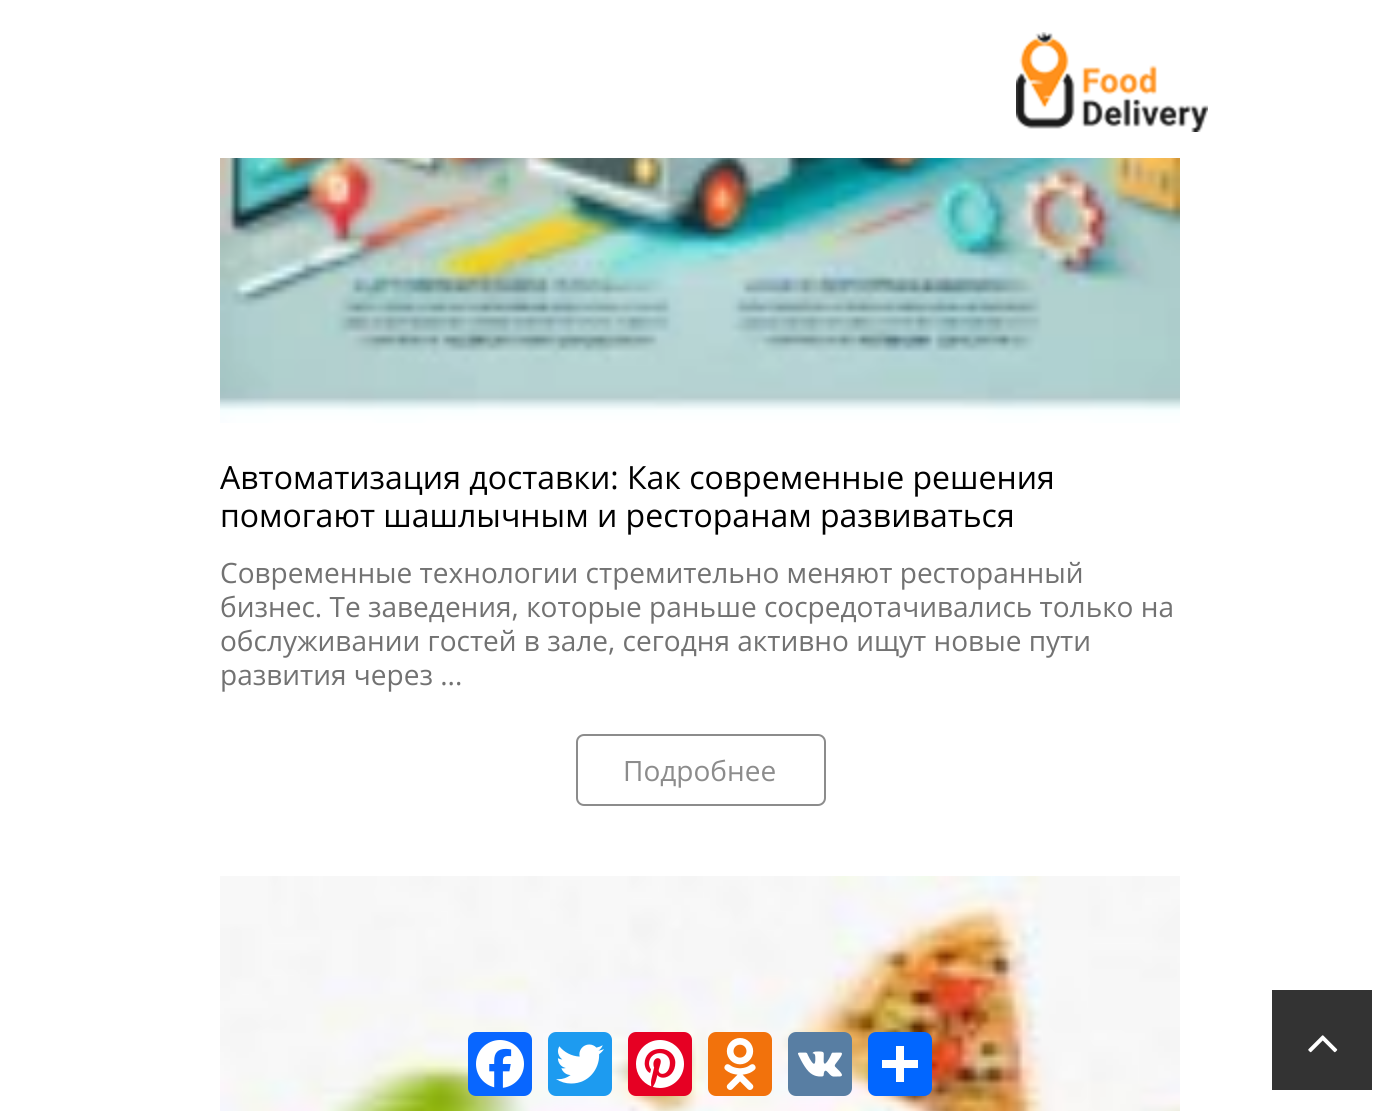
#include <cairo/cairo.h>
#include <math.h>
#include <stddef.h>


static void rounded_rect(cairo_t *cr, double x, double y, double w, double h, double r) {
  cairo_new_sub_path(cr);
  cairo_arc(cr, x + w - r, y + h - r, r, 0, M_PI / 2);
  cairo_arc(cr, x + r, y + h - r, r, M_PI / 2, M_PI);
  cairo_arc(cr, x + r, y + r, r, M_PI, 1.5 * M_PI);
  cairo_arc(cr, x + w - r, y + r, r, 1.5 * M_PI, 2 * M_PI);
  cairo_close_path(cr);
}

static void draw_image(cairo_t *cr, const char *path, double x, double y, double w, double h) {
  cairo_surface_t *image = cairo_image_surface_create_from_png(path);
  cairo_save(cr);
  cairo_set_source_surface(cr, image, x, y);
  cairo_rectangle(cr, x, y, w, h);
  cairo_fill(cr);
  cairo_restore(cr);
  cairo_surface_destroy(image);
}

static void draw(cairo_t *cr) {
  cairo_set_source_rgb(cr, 1, 1, 1);
  cairo_paint(cr);
  draw_image(cr, "images/1.png", 1016, 32, 192, 100);
  draw_image(cr, "images/2.png", 220, 158, 960, 265);
  rounded_rect(cr, 577, 735, 248, 70, 7);
  cairo_set_source_rgb(cr, 140 / 255.0, 140 / 255.0, 140 / 255.0);
  cairo_stroke(cr);
  draw_image(cr, "images/3.png", 220, 876, 960, 235);
  cairo_set_source_rgb(cr, 8 / 255.0, 102 / 255.0, 1);
  rounded_rect(cr, 468, 1032, 64, 64, 8);
  cairo_fill(cr);
  draw_image(cr, "images/4.png", 476, 1040, 48, 48);
  cairo_set_source_rgb(cr, 29 / 255.0, 155 / 255.0, 240 / 255.0);
  rounded_rect(cr, 548, 1032, 64, 64, 8);
  cairo_fill(cr);
  draw_image(cr, "images/5.png", 556, 1044, 48, 40);
  cairo_set_source_rgb(cr, 230 / 255.0, 0, 35 / 255.0);
  rounded_rect(cr, 628, 1032, 64, 64, 8);
  cairo_fill(cr);
  draw_image(cr, "images/6.png", 636, 1040, 48, 48);
  cairo_set_source_rgb(cr, 242 / 255.0, 114 / 255.0, 12 / 255.0);
  rounded_rect(cr, 708, 1032, 64, 64, 8);
  cairo_fill(cr);
  draw_image(cr, "images/7.png", 724, 1038, 32, 52);
  cairo_set_source_rgb(cr, 88 / 255.0, 126 / 255.0, 163 / 255.0);
  rounded_rect(cr, 788, 1032, 64, 64, 8);
  cairo_fill(cr);
  draw_image(cr, "images/8.png", 798, 1051, 44, 26);
  cairo_set_source_rgb(cr, 1 / 255.0, 102 / 255.0, 1);
  rounded_rect(cr, 868, 1032, 64, 64, 8);
  cairo_fill(cr);
  cairo_set_source_rgb(cr, 1, 1, 1);
  cairo_rectangle(cr, 896, 1046, 8, 36);
  cairo_fill(cr);
  cairo_rectangle(cr, 882, 1060, 36, 8);
  cairo_fill(cr);
  cairo_set_source_rgb(cr, 51 / 255.0, 51 / 255.0, 51 / 255.0);
  cairo_rectangle(cr, 1272, 990, 100, 100);
  cairo_fill(cr);
  draw_image(cr, "images/9.png", 1308, 1035, 30, 18);
  cairo_select_font_face(cr, "Open Sans", CAIRO_FONT_SLANT_NORMAL, CAIRO_FONT_WEIGHT_NORMAL);
  cairo_set_font_size(cr, 32);
  cairo_set_source_rgb(cr, 0, 0, 0);
  cairo_move_to(cr, 220, 489);
  cairo_show_text(cr, "Автоматизация доставки: Как современные решения");
  cairo_move_to(cr, 220, 527);
  cairo_show_text(cr, "помогают шашлычным и ресторанам развиваться");
  cairo_set_font_size(cr, 28);
  cairo_set_source_rgb(cr, 114 / 255.0, 114 / 255.0, 114 / 255.0);
  cairo_move_to(cr, 220, 583);
  cairo_show_text(cr, "Современные технологии стремительно меняют ресторанный");
  cairo_move_to(cr, 220, 617);
  cairo_show_text(cr, "бизнес. Те заведения, которые раньше сосредотачивались только на");
  cairo_move_to(cr, 220, 651);
  cairo_show_text(cr, "обслуживании гостей в зале, сегодня активно ищут новые пути");
  cairo_move_to(cr, 220, 685);
  cairo_show_text(cr, "развития через ...");
  cairo_set_source_rgb(cr, 140 / 255.0, 140 / 255.0, 140 / 255.0);
  cairo_move_to(cr, 623, 781);
  cairo_show_text(cr, "Подробнее");
}

int main(void) {
  cairo_surface_t *surface = cairo_image_surface_create(CAIRO_FORMAT_RGB24, 1400, 1111);
  cairo_t *cr = cairo_create(surface);
  cairo_font_options_t *options = cairo_font_options_create();
  cairo_font_options_set_hint_metrics(options, CAIRO_HINT_METRICS_OFF);
  cairo_font_options_set_hint_style(options, CAIRO_HINT_STYLE_NONE);
  cairo_set_font_options(cr, options);
  cairo_set_miter_limit(cr, 4);
  draw(cr);
  cairo_surface_write_to_png(surface, "out.png");
  cairo_font_options_destroy(options);
  cairo_destroy(cr);
  cairo_surface_destroy(surface);
  return 0;
}
